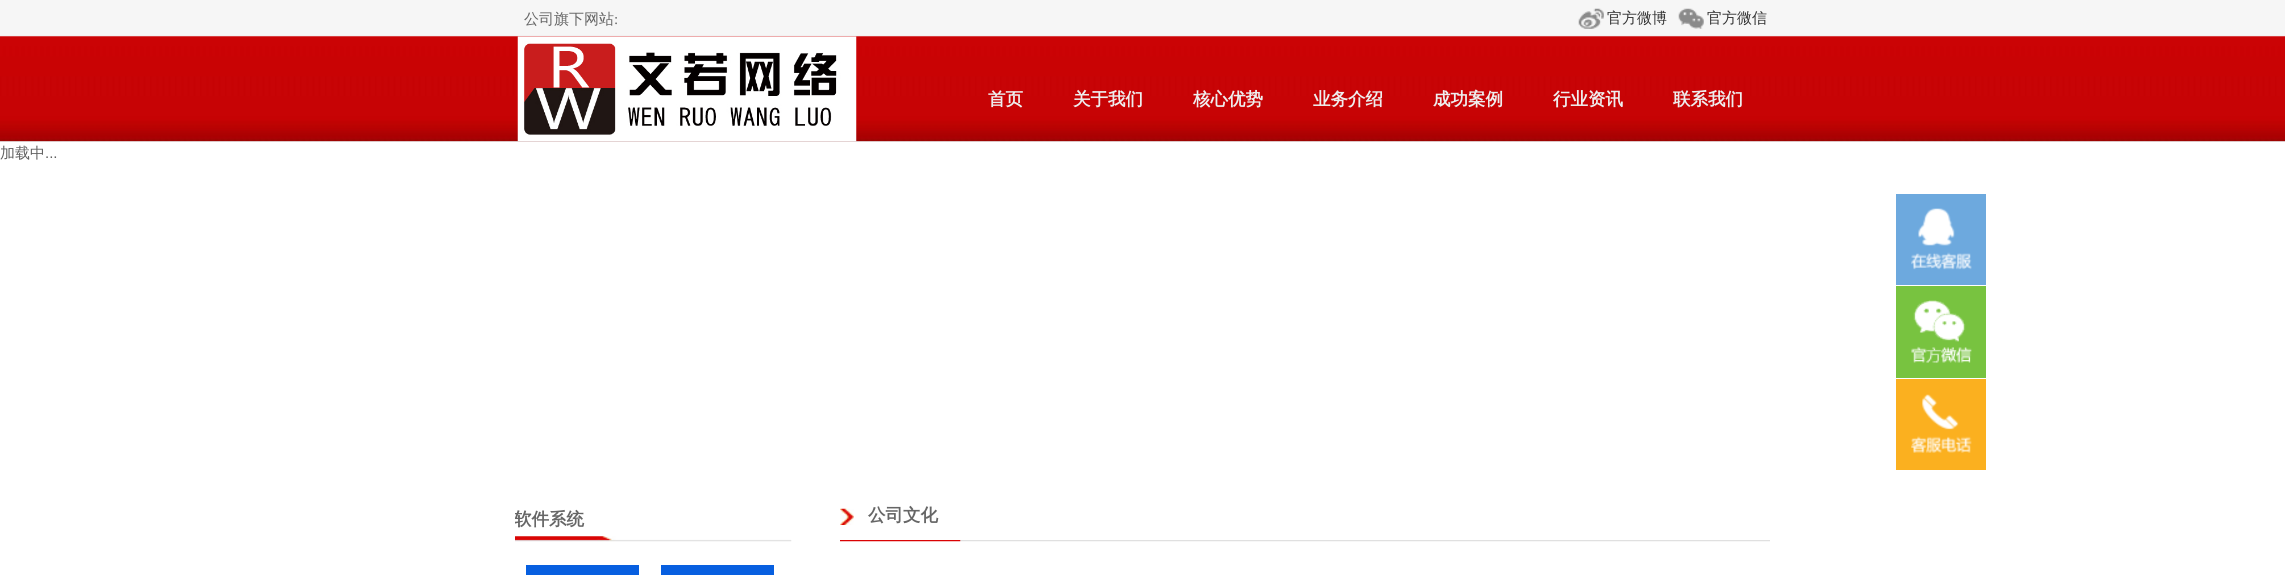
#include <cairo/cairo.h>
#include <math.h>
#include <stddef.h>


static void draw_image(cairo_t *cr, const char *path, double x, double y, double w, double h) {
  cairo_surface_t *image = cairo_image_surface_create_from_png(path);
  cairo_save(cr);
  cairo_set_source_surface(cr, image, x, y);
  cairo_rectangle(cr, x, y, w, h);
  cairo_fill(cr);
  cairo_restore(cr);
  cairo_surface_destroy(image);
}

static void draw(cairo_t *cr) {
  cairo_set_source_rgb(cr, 1, 1, 1);
  cairo_paint(cr);
  cairo_set_source_rgb(cr, 246 / 255.0, 246 / 255.0, 246 / 255.0);
  cairo_rectangle(cr, 0, 0, 2285, 35);
  cairo_fill(cr);
  cairo_set_source_rgb(cr, 242 / 255.0, 242 / 255.0, 242 / 255.0);
  cairo_rectangle(cr, 0, 35, 2285, 1);
  cairo_fill(cr);
  draw_image(cr, "images/1.png", 1578, 8, 26, 21);
  draw_image(cr, "images/2.png", 1678, 8, 26, 21);
  draw_image(cr, "images/3.png", 0, 36, 2285, 106);
  draw_image(cr, "images/4.png", 517, 36, 340, 106);
  cairo_set_source_rgb(cr, 109 / 255.0, 169 / 255.0, 222 / 255.0);
  cairo_rectangle(cr, 1896, 194, 90, 91);
  cairo_fill(cr);
  draw_image(cr, "images/5.png", 1911, 208, 61, 62);
  cairo_set_source_rgb(cr, 120 / 255.0, 195 / 255.0, 64 / 255.0);
  cairo_rectangle(cr, 1896, 286, 90, 92);
  cairo_fill(cr);
  draw_image(cr, "images/6.png", 1911, 300, 61, 63);
  cairo_set_source_rgb(cr, 251 / 255.0, 176 / 255.0, 31 / 255.0);
  cairo_rectangle(cr, 1896, 379, 90, 91);
  cairo_fill(cr);
  draw_image(cr, "images/7.png", 1911, 394, 61, 59);
  draw_image(cr, "images/8.png", 515, 536, 277, 6);
  cairo_set_source_rgb(cr, 7 / 255.0, 95 / 255.0, 224 / 255.0);
  cairo_rectangle(cr, 526, 565, 113, 10);
  cairo_fill(cr);
  cairo_rectangle(cr, 661, 565, 113, 10);
  cairo_fill(cr);
  draw_image(cr, "images/9.png", 840, 540, 930, 2);
  draw_image(cr, "images/10.png", 840, 508, 14, 17);
  cairo_select_font_face(cr, "WenQuanYi Zen Hei Medium", CAIRO_FONT_SLANT_NORMAL, CAIRO_FONT_WEIGHT_NORMAL);
  cairo_set_font_size(cr, 15);
  cairo_set_source_rgb(cr, 102 / 255.0, 102 / 255.0, 102 / 255.0);
  cairo_move_to(cr, 524, 24);
  cairo_show_text(cr, "公司旗下网站");
  cairo_select_font_face(cr, "Liberation Serif", CAIRO_FONT_SLANT_NORMAL, CAIRO_FONT_WEIGHT_NORMAL);
  cairo_move_to(cr, 614, 24);
  cairo_show_text(cr, ":");
  cairo_select_font_face(cr, "WenQuanYi Zen Hei Medium", CAIRO_FONT_SLANT_NORMAL, CAIRO_FONT_WEIGHT_NORMAL);
  cairo_set_source_rgb(cr, 51 / 255.0, 51 / 255.0, 51 / 255.0);
  cairo_move_to(cr, 1607, 23);
  cairo_show_text(cr, "官方微博");
  cairo_move_to(cr, 1707, 23);
  cairo_show_text(cr, "官方微信");
  cairo_select_font_face(cr, "WenQuanYi Zen Hei", CAIRO_FONT_SLANT_NORMAL, CAIRO_FONT_WEIGHT_BOLD);
  cairo_set_font_size(cr, 17.5);
  cairo_set_source_rgb(cr, 238 / 255.0, 238 / 255.0, 238 / 255.0);
  cairo_move_to(cr, 988, 105);
  cairo_show_text(cr, "首页");
  cairo_move_to(cr, 1073, 105);
  cairo_show_text(cr, "关于我们");
  cairo_move_to(cr, 1193, 105);
  cairo_show_text(cr, "核心优势");
  cairo_move_to(cr, 1313, 105);
  cairo_show_text(cr, "业务介绍");
  cairo_move_to(cr, 1433, 105);
  cairo_show_text(cr, "成功案例");
  cairo_move_to(cr, 1553, 105);
  cairo_show_text(cr, "行业资讯");
  cairo_move_to(cr, 1673, 105);
  cairo_show_text(cr, "联系我们");
  cairo_select_font_face(cr, "WenQuanYi Zen Hei Medium", CAIRO_FONT_SLANT_NORMAL, CAIRO_FONT_WEIGHT_NORMAL);
  cairo_set_font_size(cr, 15);
  cairo_set_source_rgb(cr, 96 / 255.0, 96 / 255.0, 96 / 255.0);
  cairo_move_to(cr, 0, 158);
  cairo_show_text(cr, "加载中");
  cairo_select_font_face(cr, "Liberation Sans", CAIRO_FONT_SLANT_NORMAL, CAIRO_FONT_WEIGHT_NORMAL);
  cairo_move_to(cr, 45, 158);
  cairo_show_text(cr, "...");
  cairo_save(cr);
  cairo_rectangle(cr, 515, 498, 1256, 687);
  cairo_clip(cr);
  cairo_select_font_face(cr, "WenQuanYi Zen Hei", CAIRO_FONT_SLANT_NORMAL, CAIRO_FONT_WEIGHT_BOLD);
  cairo_set_font_size(cr, 17.5);
  cairo_set_source_rgb(cr, 102 / 255.0, 102 / 255.0, 102 / 255.0);
  cairo_move_to(cr, 514, 525);
  cairo_show_text(cr, "软件系统");
  cairo_restore(cr);
  cairo_select_font_face(cr, "WenQuanYi Zen Hei", CAIRO_FONT_SLANT_NORMAL, CAIRO_FONT_WEIGHT_BOLD);
  cairo_set_font_size(cr, 17.5);
  cairo_set_source_rgb(cr, 102 / 255.0, 102 / 255.0, 102 / 255.0);
  cairo_move_to(cr, 868, 521);
  cairo_show_text(cr, "公司文化");
}

int main(void) {
  cairo_surface_t *surface = cairo_image_surface_create(CAIRO_FORMAT_RGB24, 2285, 575);
  cairo_t *cr = cairo_create(surface);
  cairo_font_options_t *options = cairo_font_options_create();
  cairo_font_options_set_hint_metrics(options, CAIRO_HINT_METRICS_OFF);
  cairo_font_options_set_hint_style(options, CAIRO_HINT_STYLE_NONE);
  cairo_set_font_options(cr, options);
  cairo_set_miter_limit(cr, 4);
  draw(cr);
  cairo_surface_write_to_png(surface, "out.png");
  cairo_font_options_destroy(options);
  cairo_destroy(cr);
  cairo_surface_destroy(surface);
  return 0;
}
